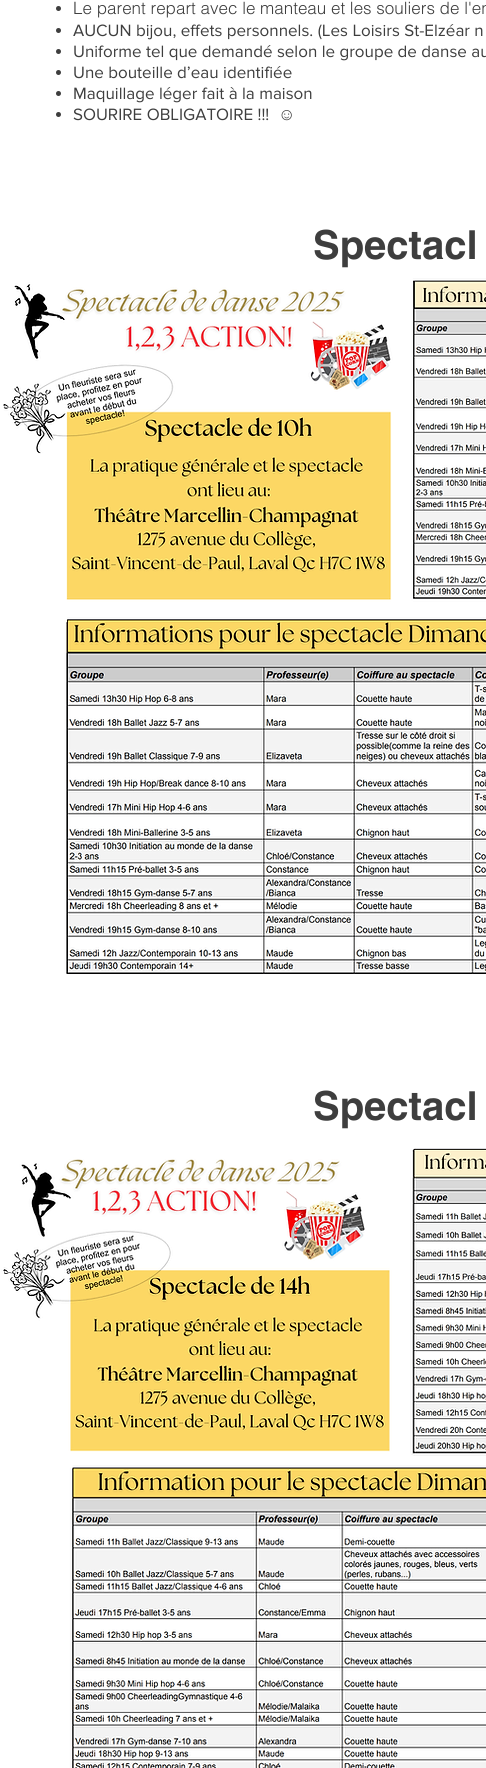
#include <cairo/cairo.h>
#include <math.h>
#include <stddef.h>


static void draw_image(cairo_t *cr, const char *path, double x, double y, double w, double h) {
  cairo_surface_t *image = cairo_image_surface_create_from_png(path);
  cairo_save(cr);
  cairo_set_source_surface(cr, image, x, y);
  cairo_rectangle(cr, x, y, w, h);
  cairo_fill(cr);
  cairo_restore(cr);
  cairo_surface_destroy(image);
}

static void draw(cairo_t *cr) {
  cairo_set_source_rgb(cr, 1, 1, 1);
  cairo_paint(cr);
  cairo_set_source_rgb(cr, 62 / 255.0, 62 / 255.0, 62 / 255.0);
  cairo_arc(cr, 58.5, 8.5, 2.5, 0, 2 * M_PI);
  cairo_fill(cr);
  cairo_arc(cr, 58.5, 30.5, 2.5, 0, 2 * M_PI);
  cairo_fill(cr);
  cairo_arc(cr, 58.5, 51.5, 2.5, 0, 2 * M_PI);
  cairo_fill(cr);
  cairo_arc(cr, 58.5, 72.5, 2.5, 0, 2 * M_PI);
  cairo_fill(cr);
  cairo_arc(cr, 58.5, 93.5, 2.5, 0, 2 * M_PI);
  cairo_fill(cr);
  cairo_arc(cr, 58.5, 114.5, 2.5, 0, 2 * M_PI);
  cairo_fill(cr);
  draw_image(cr, "images/1.png", 3, 278, 483, 696);
  draw_image(cr, "images/2.png", 1, 1148, 485, 620);
  cairo_select_font_face(cr, "helvetica Light", CAIRO_FONT_SLANT_NORMAL, CAIRO_FONT_WEIGHT_NORMAL);
  cairo_set_font_size(cr, 17);
  cairo_move_to(cr, 73, 14);
  cairo_show_text(cr, "Le parent repart avec le manteau et les souliers de l'en");
  cairo_select_font_face(cr, "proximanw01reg", CAIRO_FONT_SLANT_NORMAL, CAIRO_FONT_WEIGHT_NORMAL);
  cairo_move_to(cr, 73, 36);
  cairo_show_text(cr, "AUCUN bijou, effets personnels. (Les Loisirs St-Elzéar n");
  cairo_move_to(cr, 73, 57);
  cairo_show_text(cr, "Uniforme tel que demandé selon le groupe de danse au");
  cairo_move_to(cr, 73, 78);
  cairo_show_text(cr, "Une bouteille d’eau identifiée");
  cairo_move_to(cr, 73, 99);
  cairo_show_text(cr, "Maquillage léger fait à la maison");
  cairo_move_to(cr, 73, 120);
  cairo_show_text(cr, "SOURIRE OBLIGATOIRE !!!");
  cairo_select_font_face(cr, "Liberation Sans", CAIRO_FONT_SLANT_NORMAL, CAIRO_FONT_WEIGHT_NORMAL);
  cairo_move_to(cr, 278, 120);
  cairo_show_text(cr, "☺");
  cairo_select_font_face(cr, "helvetica", CAIRO_FONT_SLANT_NORMAL, CAIRO_FONT_WEIGHT_BOLD);
  cairo_set_font_size(cr, 40);
  cairo_move_to(cr, 313, 259);
  cairo_show_text(cr, "Spectacl");
  cairo_move_to(cr, 313, 1120);
  cairo_show_text(cr, "Spectacl");
}

int main(void) {
  cairo_surface_t *surface = cairo_image_surface_create(CAIRO_FORMAT_RGB24, 486, 1768);
  cairo_t *cr = cairo_create(surface);
  cairo_font_options_t *options = cairo_font_options_create();
  cairo_font_options_set_hint_metrics(options, CAIRO_HINT_METRICS_OFF);
  cairo_font_options_set_hint_style(options, CAIRO_HINT_STYLE_NONE);
  cairo_set_font_options(cr, options);
  cairo_set_miter_limit(cr, 4);
  draw(cr);
  cairo_surface_write_to_png(surface, "out.png");
  cairo_font_options_destroy(options);
  cairo_destroy(cr);
  cairo_surface_destroy(surface);
  return 0;
}
